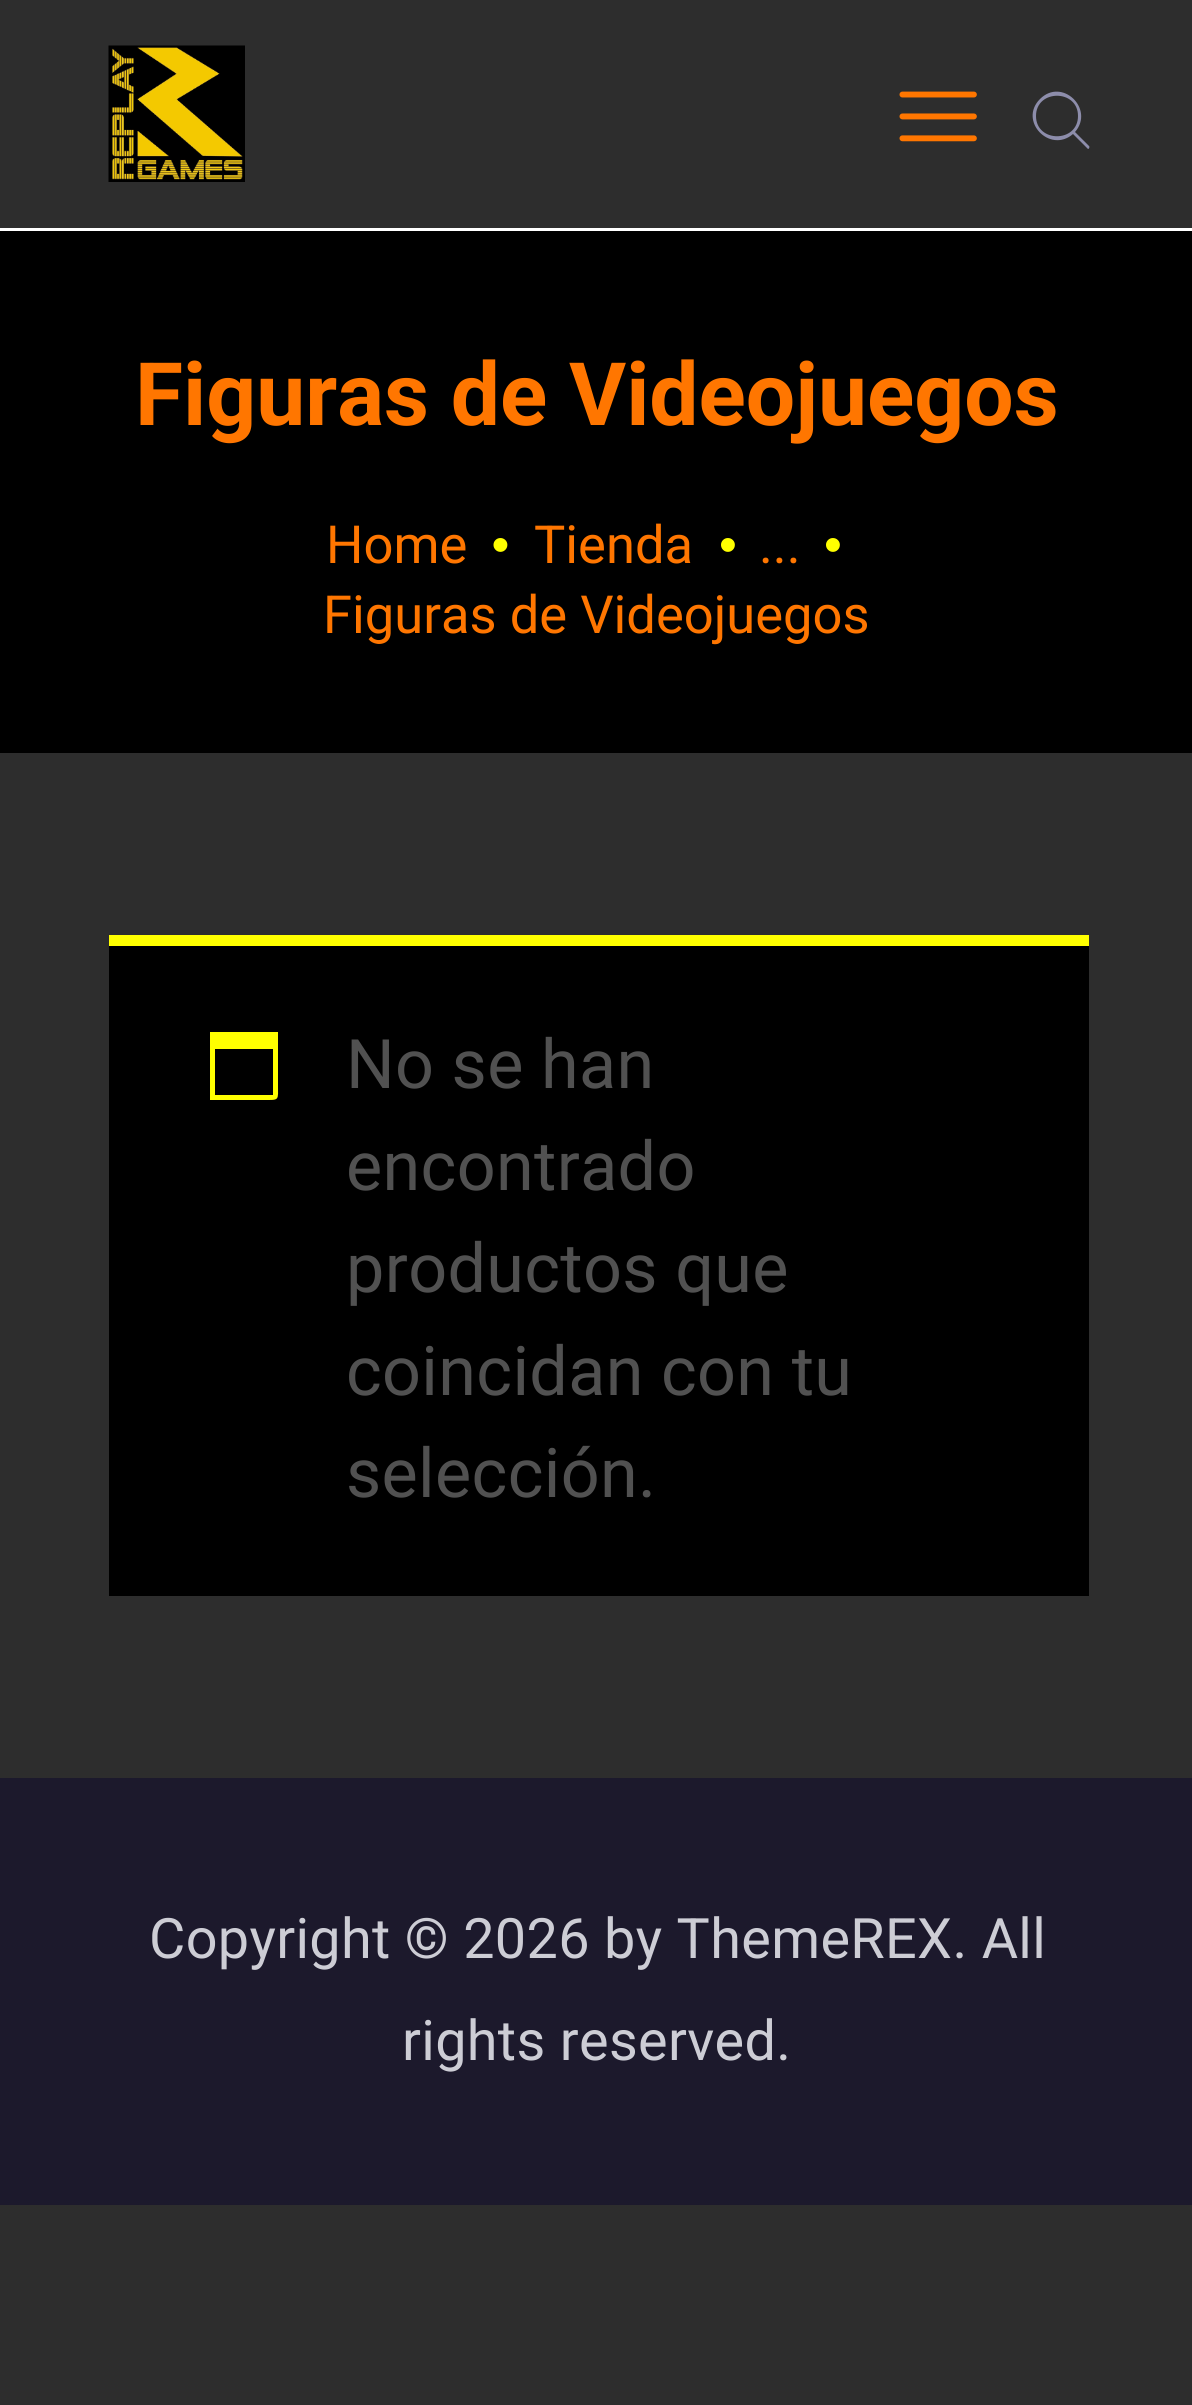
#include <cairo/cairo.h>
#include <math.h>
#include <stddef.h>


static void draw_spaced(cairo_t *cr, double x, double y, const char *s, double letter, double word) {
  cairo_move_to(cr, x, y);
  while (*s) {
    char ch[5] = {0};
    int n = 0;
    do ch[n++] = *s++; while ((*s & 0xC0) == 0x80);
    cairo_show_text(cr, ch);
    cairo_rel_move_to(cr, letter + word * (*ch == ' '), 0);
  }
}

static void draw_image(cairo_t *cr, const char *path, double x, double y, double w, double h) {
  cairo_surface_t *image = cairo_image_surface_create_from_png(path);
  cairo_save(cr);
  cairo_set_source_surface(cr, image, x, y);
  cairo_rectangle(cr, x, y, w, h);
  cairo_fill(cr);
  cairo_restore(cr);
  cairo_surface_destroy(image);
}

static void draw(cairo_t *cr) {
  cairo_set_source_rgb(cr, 45 / 255.0, 45 / 255.0, 45 / 255.0);
  cairo_paint(cr);
  cairo_set_source_rgb(cr, 1, 1, 1);
  cairo_rectangle(cr, 0, 228, 1192, 3);
  cairo_fill(cr);
  draw_image(cr, "images/1.png", 108, 45, 137, 137);
  draw_image(cr, "images/2.png", 899, 91, 78, 51);
  cairo_set_source_rgb(cr, 141 / 255.0, 141 / 255.0, 171 / 255.0);
  cairo_new_path(cr);
  cairo_move_to(cr, 1089, 146);
  cairo_line_to(cr, 1075, 132);
  cairo_curve_to(cr, 1095, 109, 1062, 77, 1040, 99);
  cairo_curve_to(cr, 1018, 121, 1050, 154, 1073, 134);
  cairo_line_to(cr, 1088, 149);
  cairo_curve_to(cr, 1089, 149, 1090, 147, 1089, 146);
  cairo_close_path(cr);
  cairo_move_to(cr, 1036, 116);
  cairo_curve_to(cr, 1036, 89, 1078, 89, 1078, 116);
  cairo_curve_to(cr, 1078, 143, 1036, 143, 1036, 116);
  cairo_close_path(cr);
  cairo_fill(cr);
  cairo_set_source_rgb(cr, 0, 0, 0);
  cairo_rectangle(cr, 0, 231, 1192, 522);
  cairo_fill(cr);
  draw_image(cr, "images/3.png", 493, 538, 15, 14);
  draw_image(cr, "images/4.png", 721, 538, 14, 14);
  draw_image(cr, "images/4.png", 826, 538, 14, 14);
  cairo_rectangle(cr, 109, 946, 980, 650);
  cairo_fill(cr);
  cairo_set_source_rgb(cr, 1, 1, 0);
  cairo_rectangle(cr, 109, 935, 980, 11);
  cairo_fill(cr);
  cairo_new_path(cr);
  cairo_move_to(cr, 273, 1049);
  cairo_line_to(cr, 215, 1049);
  cairo_line_to(cr, 215, 1095);
  cairo_line_to(cr, 273, 1095);
  cairo_close_path(cr);
  cairo_move_to(cr, 278, 1032);
  cairo_line_to(cr, 278, 1084);
  cairo_curve_to(cr, 278, 1101, 280, 1100, 263, 1100);
  cairo_line_to(cr, 210, 1100);
  cairo_line_to(cr, 210, 1032);
  cairo_close_path(cr);
  cairo_fill(cr);
  cairo_set_source_rgb(cr, 28 / 255.0, 25 / 255.0, 44 / 255.0);
  cairo_rectangle(cr, 0, 1778, 1192, 427);
  cairo_fill(cr);
  cairo_select_font_face(cr, "Roboto", CAIRO_FONT_SLANT_NORMAL, CAIRO_FONT_WEIGHT_BOLD);
  cairo_set_font_size(cr, 87.5);
  cairo_set_source_rgb(cr, 1, 118 / 255.0, 0);
  cairo_move_to(cr, 135, 425);
  cairo_show_text(cr, "Figuras de Videojuegos");
  cairo_select_font_face(cr, "Roboto", CAIRO_FONT_SLANT_NORMAL, CAIRO_FONT_WEIGHT_NORMAL);
  cairo_set_font_size(cr, 52.5);
  cairo_move_to(cr, 326, 563);
  cairo_show_text(cr, "Home");
  cairo_move_to(cr, 534, 563);
  cairo_show_text(cr, "Tienda");
  cairo_move_to(cr, 759, 563);
  cairo_show_text(cr, "...");
  cairo_move_to(cr, 323, 633);
  cairo_show_text(cr, "Figuras de Videojuegos");
  cairo_set_font_size(cr, 68.25);
  cairo_set_source_rgb(cr, 81 / 255.0, 81 / 255.0, 81 / 255.0);
  draw_spaced(cr, 346, 1088, "No se han", 0.35, 0);
  draw_spaced(cr, 346, 1190, "encontrado", 0.35, 0);
  draw_spaced(cr, 346, 1292, "productos que", 0.35, 0);
  draw_spaced(cr, 346, 1395, "coincidan con tu", 0.35, 0);
  draw_spaced(cr, 346, 1497, "selección.", 0.35, 0);
  cairo_set_font_size(cr, 55.75);
  cairo_set_source_rgb(cr, 205 / 255.0, 205 / 255.0, 213 / 255.0);
  draw_spaced(cr, 149, 1958, "Copyright © 2026 by ThemeREX. All", 0.35, 0);
  draw_spaced(cr, 402, 2060, "rights reserved.", 0.35, 0);
}

int main(void) {
  cairo_surface_t *surface = cairo_image_surface_create(CAIRO_FORMAT_RGB24, 1192, 2405);
  cairo_t *cr = cairo_create(surface);
  cairo_font_options_t *options = cairo_font_options_create();
  cairo_font_options_set_hint_metrics(options, CAIRO_HINT_METRICS_OFF);
  cairo_font_options_set_hint_style(options, CAIRO_HINT_STYLE_NONE);
  cairo_set_font_options(cr, options);
  cairo_set_miter_limit(cr, 4);
  draw(cr);
  cairo_surface_write_to_png(surface, "out.png");
  cairo_font_options_destroy(options);
  cairo_destroy(cr);
  cairo_surface_destroy(surface);
  return 0;
}
